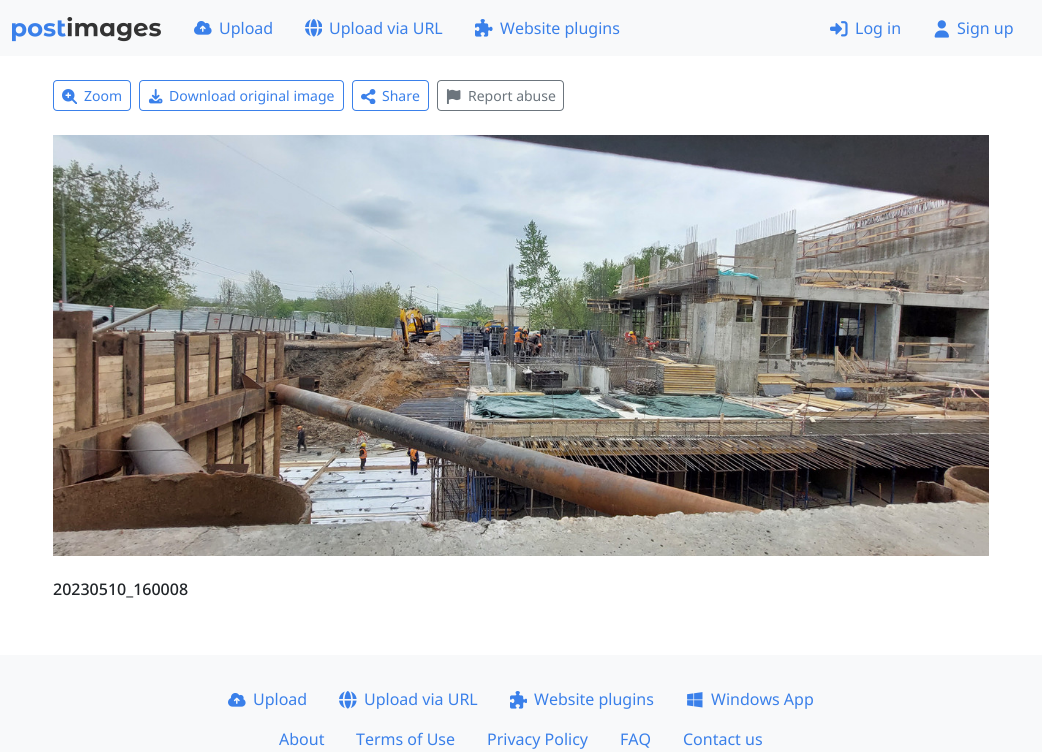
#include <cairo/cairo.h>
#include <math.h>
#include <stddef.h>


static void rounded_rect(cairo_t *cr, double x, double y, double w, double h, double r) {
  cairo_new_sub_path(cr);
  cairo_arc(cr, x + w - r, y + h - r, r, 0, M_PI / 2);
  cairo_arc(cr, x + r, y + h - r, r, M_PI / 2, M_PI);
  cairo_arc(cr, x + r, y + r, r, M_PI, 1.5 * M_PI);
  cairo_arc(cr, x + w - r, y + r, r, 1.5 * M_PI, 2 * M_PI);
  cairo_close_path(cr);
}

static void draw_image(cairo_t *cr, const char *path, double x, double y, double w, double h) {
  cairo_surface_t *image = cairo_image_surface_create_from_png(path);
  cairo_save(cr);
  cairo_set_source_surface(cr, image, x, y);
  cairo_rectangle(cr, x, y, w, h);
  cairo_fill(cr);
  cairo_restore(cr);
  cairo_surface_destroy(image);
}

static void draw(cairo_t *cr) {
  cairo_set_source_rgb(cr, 1, 1, 1);
  cairo_paint(cr);
  cairo_set_source_rgb(cr, 248 / 255.0, 249 / 255.0, 250 / 255.0);
  cairo_rectangle(cr, 0, 0, 1042, 56);
  cairo_fill(cr);
  draw_image(cr, "images/1.png", 12, 17, 149, 25);
  draw_image(cr, "images/2.png", 194, 21, 18, 14);
  draw_image(cr, "images/3.png", 305, 19, 17, 18);
  draw_image(cr, "images/4.png", 475, 19, 18, 18);
  draw_image(cr, "images/5.png", 830, 21, 18, 16);
  draw_image(cr, "images/6.png", 934, 20, 15, 18);
  rounded_rect(cr, 53.5, 80.5, 77, 30, 3.5);
  cairo_set_source_rgb(cr, 58 / 255.0, 128 / 255.0, 234 / 255.0);
  cairo_set_line_width(cr, 1);
  cairo_stroke(cr);
  draw_image(cr, "images/7.png", 62, 89, 15, 15);
  rounded_rect(cr, 139.5, 80.5, 204, 30, 3.5);
  cairo_stroke(cr);
  draw_image(cr, "images/8.png", 148, 89, 15, 15);
  rounded_rect(cr, 352.5, 80.5, 76, 30, 3.5);
  cairo_stroke(cr);
  draw_image(cr, "images/9.png", 361, 89, 15, 15);
  rounded_rect(cr, 437.5, 80.5, 126, 30, 3.5);
  cairo_set_source_rgb(cr, 108 / 255.0, 117 / 255.0, 125 / 255.0);
  cairo_stroke(cr);
  draw_image(cr, "images/10.png", 446, 89, 15, 15);
  draw_image(cr, "images/11.png", 53, 135, 936, 421);
  cairo_set_source_rgb(cr, 248 / 255.0, 249 / 255.0, 250 / 255.0);
  cairo_rectangle(cr, 0, 655, 1042, 97);
  cairo_fill(cr);
  draw_image(cr, "images/2.png", 228, 693, 18, 14);
  draw_image(cr, "images/12.png", 339, 691, 18, 18);
  draw_image(cr, "images/13.png", 510, 691, 17, 18);
  draw_image(cr, "images/14.png", 687, 692, 16, 16);
  cairo_select_font_face(cr, "Noto Sans", CAIRO_FONT_SLANT_NORMAL, CAIRO_FONT_WEIGHT_NORMAL);
  cairo_set_font_size(cr, 16);
  cairo_set_source_rgb(cr, 58 / 255.0, 128 / 255.0, 234 / 255.0);
  cairo_move_to(cr, 219, 34);
  cairo_show_text(cr, "Upload");
  cairo_move_to(cr, 329, 34);
  cairo_show_text(cr, "Upload via URL");
  cairo_move_to(cr, 500, 34);
  cairo_show_text(cr, "Website plugins");
  cairo_move_to(cr, 855, 34);
  cairo_show_text(cr, "Log in");
  cairo_move_to(cr, 957, 34);
  cairo_show_text(cr, "Sign up");
  cairo_set_font_size(cr, 14);
  cairo_move_to(cr, 84, 101);
  cairo_show_text(cr, "Zoom");
  cairo_move_to(cr, 169, 101);
  cairo_show_text(cr, "Download original image");
  cairo_move_to(cr, 382, 101);
  cairo_show_text(cr, "Share");
  cairo_set_source_rgb(cr, 108 / 255.0, 117 / 255.0, 125 / 255.0);
  cairo_move_to(cr, 468, 101);
  cairo_show_text(cr, "Report abuse");
  cairo_select_font_face(cr, "Noto Sans Medium", CAIRO_FONT_SLANT_NORMAL, CAIRO_FONT_WEIGHT_NORMAL);
  cairo_set_font_size(cr, 16);
  cairo_set_source_rgb(cr, 33 / 255.0, 37 / 255.0, 41 / 255.0);
  cairo_move_to(cr, 53, 595);
  cairo_show_text(cr, "20230510_160008");
  cairo_select_font_face(cr, "Noto Sans", CAIRO_FONT_SLANT_NORMAL, CAIRO_FONT_WEIGHT_NORMAL);
  cairo_set_source_rgb(cr, 58 / 255.0, 128 / 255.0, 234 / 255.0);
  cairo_move_to(cr, 253, 705);
  cairo_show_text(cr, "Upload");
  cairo_move_to(cr, 364, 705);
  cairo_show_text(cr, "Upload via URL");
  cairo_move_to(cr, 534, 705);
  cairo_show_text(cr, "Website plugins");
  cairo_move_to(cr, 711, 705);
  cairo_show_text(cr, "Windows App");
  cairo_move_to(cr, 279, 745);
  cairo_show_text(cr, "About");
  cairo_move_to(cr, 356, 745);
  cairo_show_text(cr, "Terms of Use");
  cairo_move_to(cr, 487, 745);
  cairo_show_text(cr, "Privacy Policy");
  cairo_move_to(cr, 620, 745);
  cairo_show_text(cr, "FAQ");
  cairo_move_to(cr, 683, 745);
  cairo_show_text(cr, "Contact us");
}

int main(void) {
  cairo_surface_t *surface = cairo_image_surface_create(CAIRO_FORMAT_RGB24, 1042, 752);
  cairo_t *cr = cairo_create(surface);
  cairo_font_options_t *options = cairo_font_options_create();
  cairo_font_options_set_hint_metrics(options, CAIRO_HINT_METRICS_OFF);
  cairo_font_options_set_hint_style(options, CAIRO_HINT_STYLE_NONE);
  cairo_set_font_options(cr, options);
  cairo_set_miter_limit(cr, 4);
  draw(cr);
  cairo_surface_write_to_png(surface, "out.png");
  cairo_font_options_destroy(options);
  cairo_destroy(cr);
  cairo_surface_destroy(surface);
  return 0;
}
